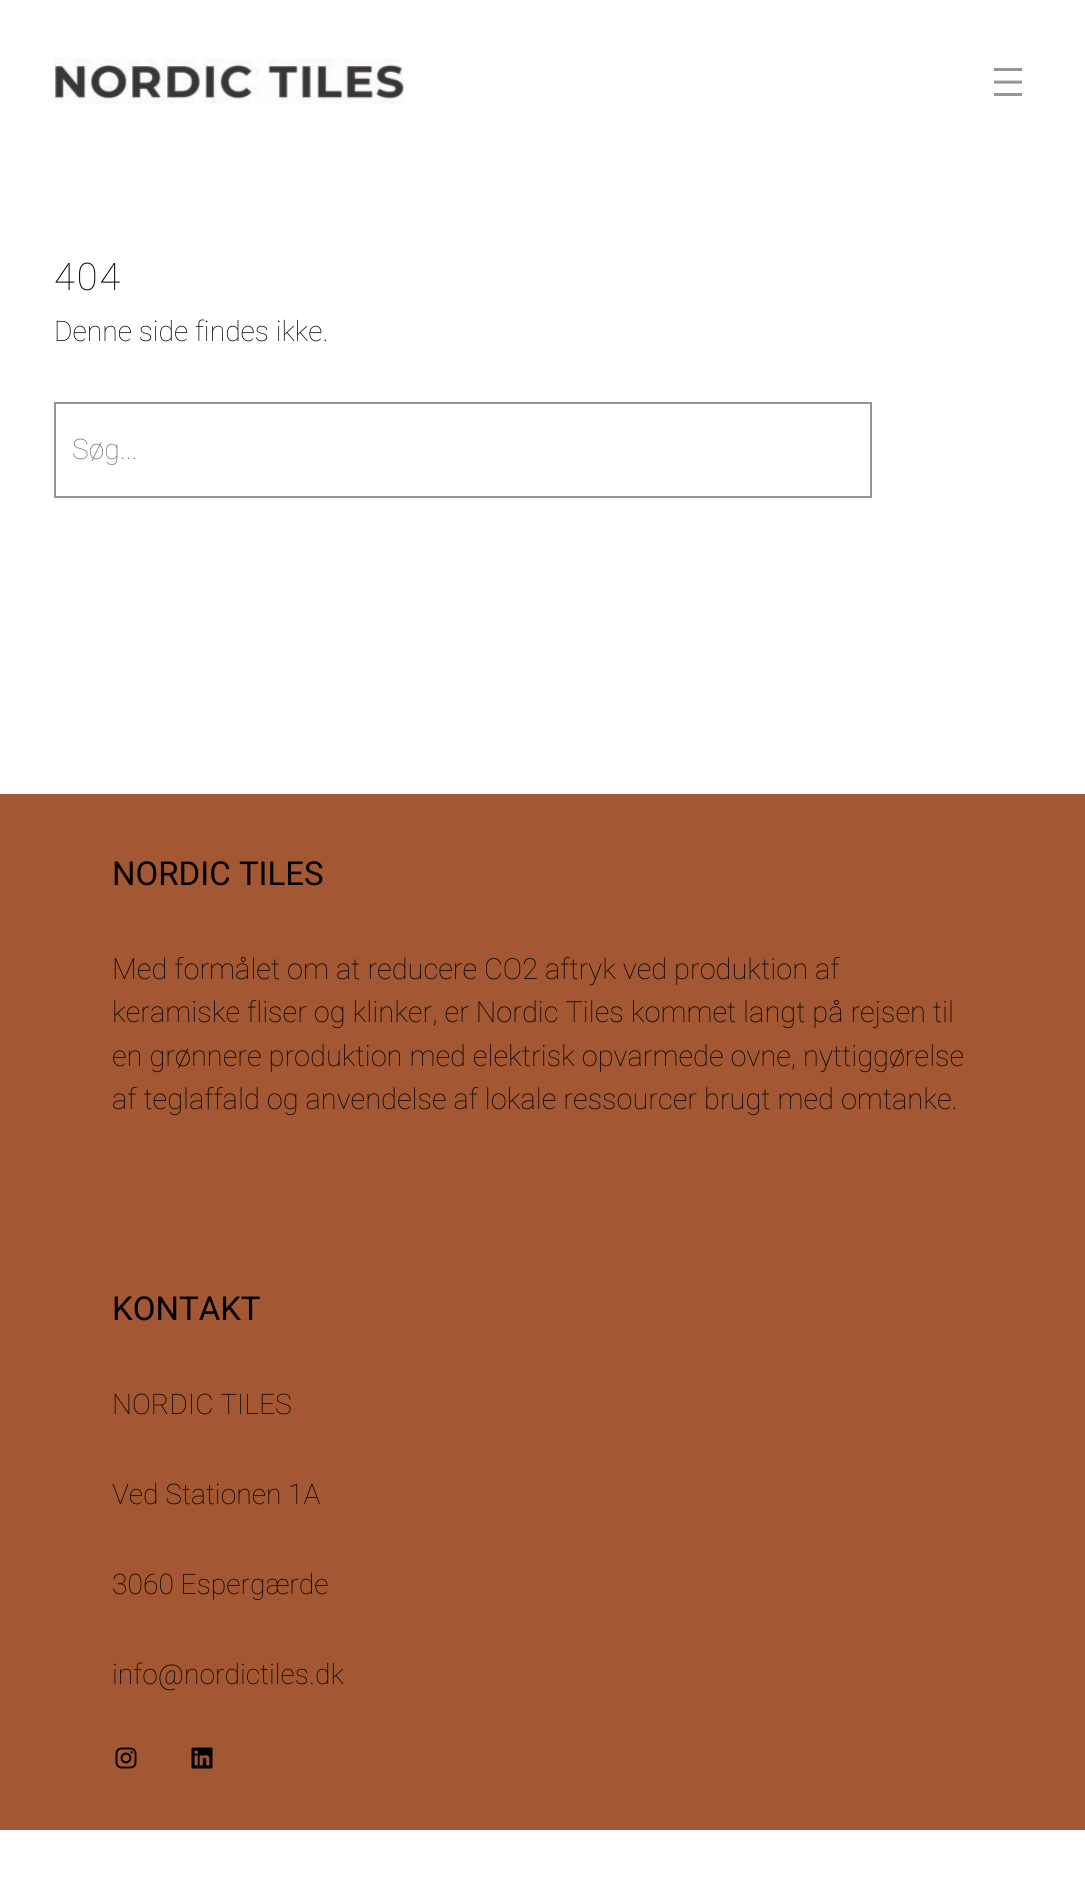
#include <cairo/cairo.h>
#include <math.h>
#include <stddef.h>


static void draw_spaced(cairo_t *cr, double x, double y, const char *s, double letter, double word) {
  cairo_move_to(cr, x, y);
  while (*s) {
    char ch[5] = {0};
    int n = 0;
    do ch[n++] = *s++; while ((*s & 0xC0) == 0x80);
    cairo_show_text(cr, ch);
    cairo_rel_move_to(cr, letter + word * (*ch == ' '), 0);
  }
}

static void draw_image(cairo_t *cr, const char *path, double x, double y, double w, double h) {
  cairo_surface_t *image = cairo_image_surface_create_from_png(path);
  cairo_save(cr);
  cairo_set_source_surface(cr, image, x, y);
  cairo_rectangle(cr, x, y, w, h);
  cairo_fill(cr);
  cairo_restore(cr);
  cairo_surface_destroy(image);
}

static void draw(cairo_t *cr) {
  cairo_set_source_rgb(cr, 1, 1, 1);
  cairo_paint(cr);
  draw_image(cr, "images/1.png", 54, 58, 350, 46);
  draw_image(cr, "images/2.png", 994, 68, 28, 28);
  cairo_rectangle(cr, 55, 403, 816, 94);
  cairo_set_source_rgb(cr, 148 / 255.0, 148 / 255.0, 148 / 255.0);
  cairo_stroke(cr);
  cairo_set_source_rgb(cr, 163 / 255.0, 87 / 255.0, 50 / 255.0);
  cairo_rectangle(cr, 0, 794, 1085, 1036);
  cairo_fill(cr);
  draw_image(cr, "images/3.png", 115, 1747, 22, 22);
  draw_image(cr, "images/4.png", 191, 1747, 22, 22);
  cairo_select_font_face(cr, "Roboto Thin", CAIRO_FONT_SLANT_NORMAL, CAIRO_FONT_WEIGHT_NORMAL);
  cairo_set_font_size(cr, 38);
  cairo_set_source_rgb(cr, 0, 0, 0);
  draw_spaced(cr, 54, 290, "404", 2, 0);
  cairo_set_font_size(cr, 28.25);
  cairo_move_to(cr, 54, 341);
  cairo_show_text(cr, "Denne side findes ikke.");
  cairo_set_source_rgb(cr, 117 / 255.0, 117 / 255.0, 117 / 255.0);
  cairo_move_to(cr, 72, 459);
  cairo_show_text(cr, "Søg...");
  cairo_select_font_face(cr, "Roboto", CAIRO_FONT_SLANT_NORMAL, CAIRO_FONT_WEIGHT_NORMAL);
  cairo_set_font_size(cr, 33);
  cairo_set_source_rgb(cr, 0, 0, 0);
  cairo_move_to(cr, 112, 885);
  cairo_show_text(cr, "NORDIC TILES");
  cairo_select_font_face(cr, "Roboto Thin", CAIRO_FONT_SLANT_NORMAL, CAIRO_FONT_WEIGHT_NORMAL);
  cairo_set_font_size(cr, 29);
  cairo_move_to(cr, 112, 979);
  cairo_show_text(cr, "Med formålet om at reducere CO2 aftryk ved produktion af");
  cairo_move_to(cr, 112, 1022);
  cairo_show_text(cr, "keramiske fliser og klinker, er Nordic Tiles kommet langt på rejsen til");
  cairo_move_to(cr, 112, 1066);
  cairo_show_text(cr, "en grønnere produktion med elektrisk opvarmede ovne, nyttiggørelse");
  cairo_move_to(cr, 112, 1109);
  cairo_show_text(cr, "af teglaffald og anvendelse af lokale ressourcer brugt med omtanke.");
  cairo_select_font_face(cr, "Roboto", CAIRO_FONT_SLANT_NORMAL, CAIRO_FONT_WEIGHT_NORMAL);
  cairo_set_font_size(cr, 33);
  cairo_move_to(cr, 112, 1320);
  cairo_show_text(cr, "KONTAKT");
  cairo_select_font_face(cr, "Roboto Thin", CAIRO_FONT_SLANT_NORMAL, CAIRO_FONT_WEIGHT_NORMAL);
  cairo_set_font_size(cr, 28.25);
  cairo_move_to(cr, 112, 1414);
  cairo_show_text(cr, "NORDIC TILES");
  cairo_move_to(cr, 112, 1504);
  cairo_show_text(cr, "Ved Stationen 1A");
  cairo_move_to(cr, 112, 1594);
  cairo_show_text(cr, "3060 Espergærde");
  cairo_move_to(cr, 112, 1684);
  cairo_show_text(cr, "info@nordictiles.dk");
}

int main(void) {
  cairo_surface_t *surface = cairo_image_surface_create(CAIRO_FORMAT_RGB24, 1085, 1891);
  cairo_t *cr = cairo_create(surface);
  cairo_font_options_t *options = cairo_font_options_create();
  cairo_font_options_set_hint_metrics(options, CAIRO_HINT_METRICS_OFF);
  cairo_font_options_set_hint_style(options, CAIRO_HINT_STYLE_NONE);
  cairo_set_font_options(cr, options);
  cairo_set_miter_limit(cr, 4);
  draw(cr);
  cairo_surface_write_to_png(surface, "out.png");
  cairo_font_options_destroy(options);
  cairo_destroy(cr);
  cairo_surface_destroy(surface);
  return 0;
}
